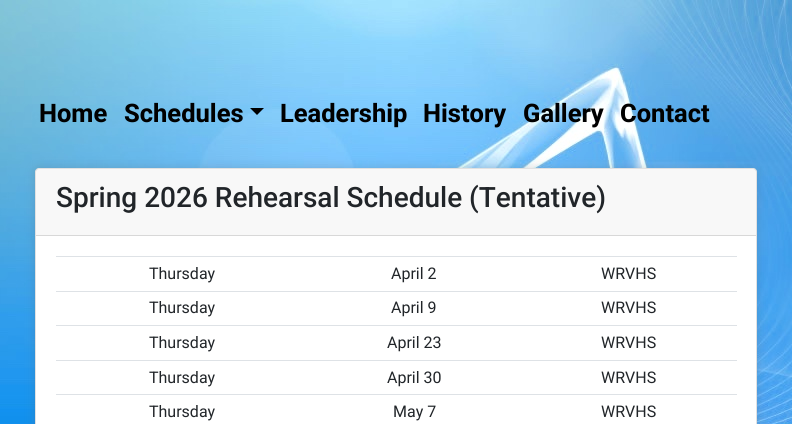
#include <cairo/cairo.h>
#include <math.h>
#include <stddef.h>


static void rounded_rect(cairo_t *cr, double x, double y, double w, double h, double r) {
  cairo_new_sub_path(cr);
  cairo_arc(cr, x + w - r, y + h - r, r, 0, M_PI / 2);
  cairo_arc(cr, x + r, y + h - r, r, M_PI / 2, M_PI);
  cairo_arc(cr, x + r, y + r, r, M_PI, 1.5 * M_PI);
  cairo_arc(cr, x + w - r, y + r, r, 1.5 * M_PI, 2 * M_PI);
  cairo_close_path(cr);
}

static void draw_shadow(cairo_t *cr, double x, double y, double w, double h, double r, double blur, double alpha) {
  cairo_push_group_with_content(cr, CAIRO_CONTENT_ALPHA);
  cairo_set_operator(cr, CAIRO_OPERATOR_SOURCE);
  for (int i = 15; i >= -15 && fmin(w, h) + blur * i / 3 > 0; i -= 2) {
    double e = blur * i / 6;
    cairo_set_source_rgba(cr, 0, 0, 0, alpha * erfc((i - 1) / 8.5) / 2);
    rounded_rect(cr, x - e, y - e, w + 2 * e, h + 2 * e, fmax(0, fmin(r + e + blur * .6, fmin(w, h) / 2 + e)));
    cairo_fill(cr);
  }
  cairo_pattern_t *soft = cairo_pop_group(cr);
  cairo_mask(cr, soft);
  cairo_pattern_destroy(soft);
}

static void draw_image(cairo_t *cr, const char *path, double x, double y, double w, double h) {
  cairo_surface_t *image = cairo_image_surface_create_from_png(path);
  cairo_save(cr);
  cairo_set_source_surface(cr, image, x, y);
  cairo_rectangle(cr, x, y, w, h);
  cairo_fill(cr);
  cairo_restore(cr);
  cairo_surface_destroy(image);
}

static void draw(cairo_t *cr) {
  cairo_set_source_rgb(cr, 1, 1, 1);
  cairo_paint(cr);
  draw_image(cr, "images/1.png", 0, 0, 792, 424);
  cairo_set_source_rgb(cr, 0, 0, 0);
  cairo_new_path(cr);
  cairo_move_to(cr, 250, 108);
  cairo_line_to(cr, 264, 108);
  cairo_line_to(cr, 257, 115);
  cairo_close_path(cr);
  cairo_fill(cr);
  cairo_set_source_rgb(cr, 100 / 255.0, 100 / 255.0, 100 / 255.0);
  draw_shadow(cr, 35, 168, 722, 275, 4, 5, 0.26);
  cairo_set_source_rgb(cr, 1, 1, 1);
  rounded_rect(cr, 35, 168, 722, 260, 4);
  cairo_fill(cr);
  rounded_rect(cr, 35.5, 168.5, 721, 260, 3.5);
  cairo_set_source_rgba(cr, 0, 0, 0, 0.12);
  cairo_set_line_width(cr, 1);
  cairo_stroke(cr);
  cairo_set_source_rgba(cr, 0, 0, 0, 0.03);
  cairo_rectangle(cr, 36, 169, 720, 66);
  cairo_fill(cr);
  cairo_set_source_rgb(cr, 216 / 255.0, 216 / 255.0, 216 / 255.0);
  cairo_rectangle(cr, 36, 235, 720, 1);
  cairo_fill(cr);
  cairo_set_source_rgb(cr, 222 / 255.0, 226 / 255.0, 230 / 255.0);
  cairo_rectangle(cr, 56, 256, 681, 1);
  cairo_fill(cr);
  cairo_rectangle(cr, 56, 291, 681, 1);
  cairo_fill(cr);
  cairo_rectangle(cr, 56, 325, 681, 1);
  cairo_fill(cr);
  cairo_rectangle(cr, 56, 360, 681, 1);
  cairo_fill(cr);
  cairo_rectangle(cr, 56, 394, 681, 1);
  cairo_fill(cr);
  cairo_select_font_face(cr, "Roboto", CAIRO_FONT_SLANT_NORMAL, CAIRO_FONT_WEIGHT_BOLD);
  cairo_set_font_size(cr, 25.5);
  cairo_set_source_rgb(cr, 0, 0, 0);
  cairo_move_to(cr, 39, 122);
  cairo_show_text(cr, "Home");
  cairo_move_to(cr, 124, 122);
  cairo_show_text(cr, "Schedules");
  cairo_move_to(cr, 280, 122);
  cairo_show_text(cr, "Leadership");
  cairo_move_to(cr, 423, 122);
  cairo_show_text(cr, "History");
  cairo_move_to(cr, 523, 122);
  cairo_show_text(cr, "Gallery");
  cairo_move_to(cr, 620, 122);
  cairo_show_text(cr, "Contact");
  cairo_select_font_face(cr, "Roboto Medium", CAIRO_FONT_SLANT_NORMAL, CAIRO_FONT_WEIGHT_NORMAL);
  cairo_set_font_size(cr, 28);
  cairo_set_source_rgb(cr, 33 / 255.0, 37 / 255.0, 41 / 255.0);
  cairo_move_to(cr, 56, 207);
  cairo_show_text(cr, "Spring 2026 Rehearsal Schedule (Tentative)");
  cairo_select_font_face(cr, "Roboto", CAIRO_FONT_SLANT_NORMAL, CAIRO_FONT_WEIGHT_NORMAL);
  cairo_set_font_size(cr, 16);
  cairo_move_to(cr, 149, 279);
  cairo_show_text(cr, "Thursday");
  cairo_move_to(cr, 391, 279);
  cairo_show_text(cr, "April 2");
  cairo_move_to(cr, 601, 279);
  cairo_show_text(cr, "WRVHS");
  cairo_move_to(cr, 149, 313);
  cairo_show_text(cr, "Thursday");
  cairo_move_to(cr, 391, 313);
  cairo_show_text(cr, "April 9");
  cairo_move_to(cr, 601, 313);
  cairo_show_text(cr, "WRVHS");
  cairo_move_to(cr, 149, 348);
  cairo_show_text(cr, "Thursday");
  cairo_move_to(cr, 387, 348);
  cairo_show_text(cr, "April 23");
  cairo_move_to(cr, 601, 348);
  cairo_show_text(cr, "WRVHS");
  cairo_move_to(cr, 149, 383);
  cairo_show_text(cr, "Thursday");
  cairo_move_to(cr, 387, 383);
  cairo_show_text(cr, "April 30");
  cairo_move_to(cr, 601, 383);
  cairo_show_text(cr, "WRVHS");
  cairo_move_to(cr, 149, 417);
  cairo_show_text(cr, "Thursday");
  cairo_move_to(cr, 393, 417);
  cairo_show_text(cr, "May 7");
  cairo_move_to(cr, 601, 417);
  cairo_show_text(cr, "WRVHS");
}

int main(void) {
  cairo_surface_t *surface = cairo_image_surface_create(CAIRO_FORMAT_RGB24, 792, 424);
  cairo_t *cr = cairo_create(surface);
  cairo_font_options_t *options = cairo_font_options_create();
  cairo_font_options_set_hint_metrics(options, CAIRO_HINT_METRICS_OFF);
  cairo_font_options_set_hint_style(options, CAIRO_HINT_STYLE_NONE);
  cairo_set_font_options(cr, options);
  cairo_set_miter_limit(cr, 4);
  draw(cr);
  cairo_surface_write_to_png(surface, "out.png");
  cairo_font_options_destroy(options);
  cairo_destroy(cr);
  cairo_surface_destroy(surface);
  return 0;
}
